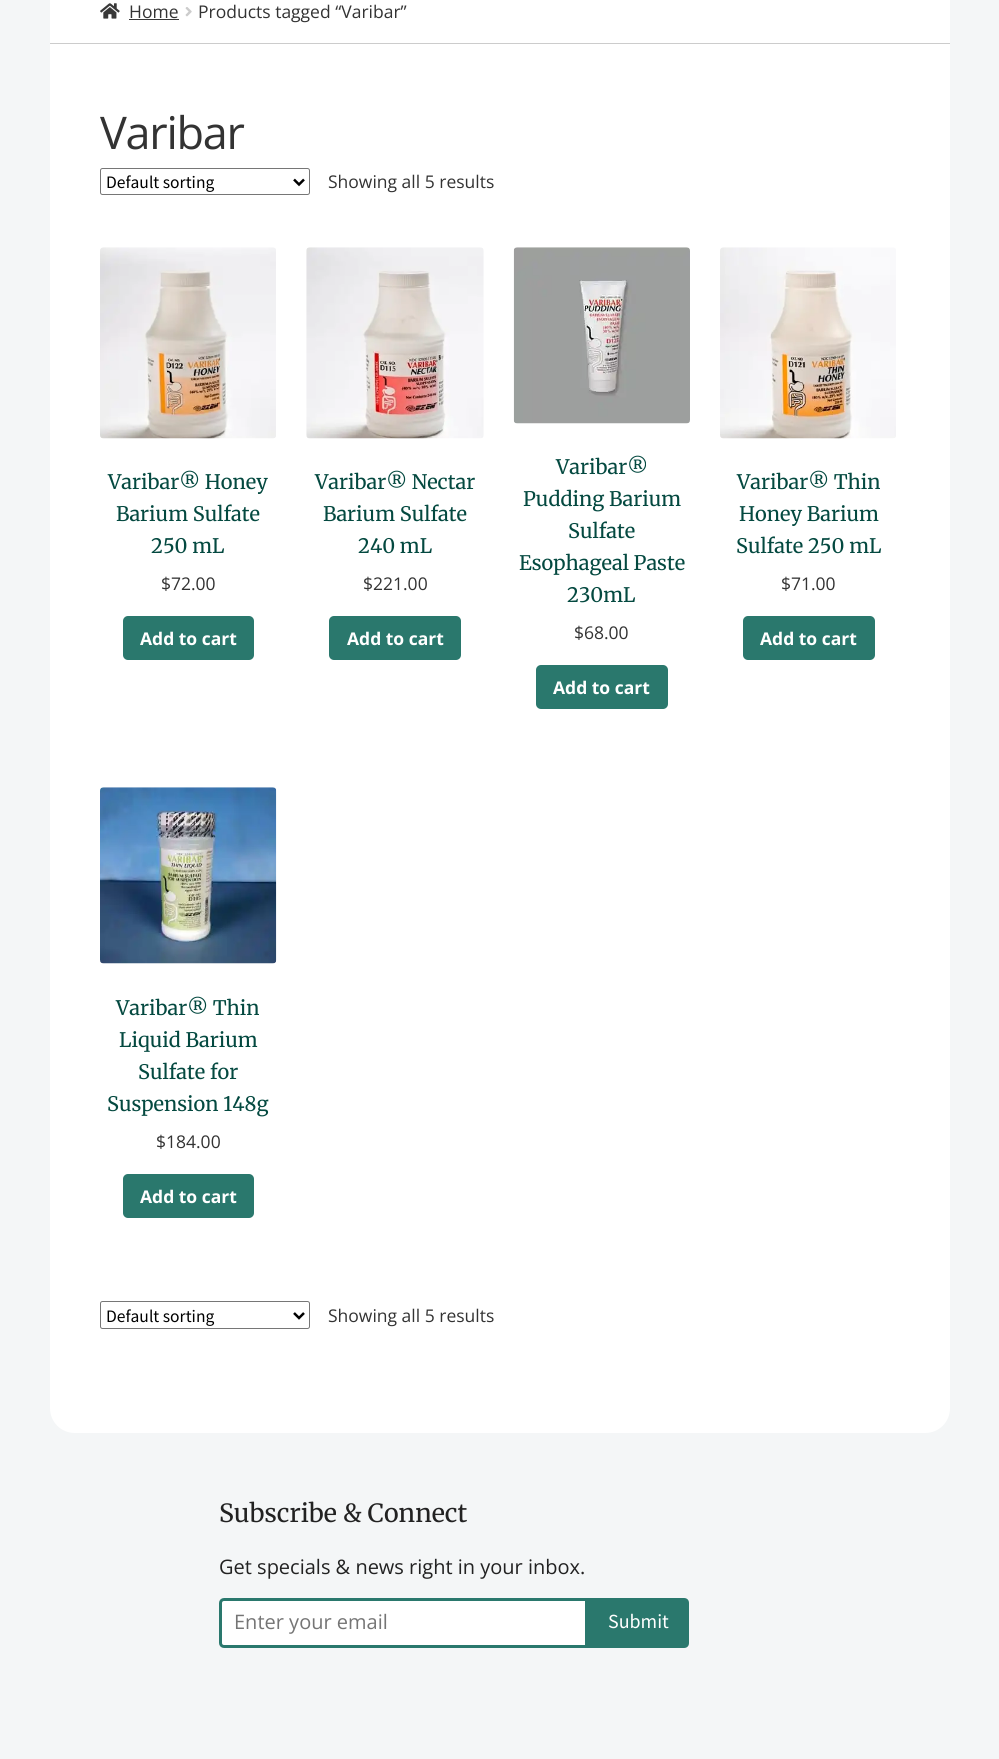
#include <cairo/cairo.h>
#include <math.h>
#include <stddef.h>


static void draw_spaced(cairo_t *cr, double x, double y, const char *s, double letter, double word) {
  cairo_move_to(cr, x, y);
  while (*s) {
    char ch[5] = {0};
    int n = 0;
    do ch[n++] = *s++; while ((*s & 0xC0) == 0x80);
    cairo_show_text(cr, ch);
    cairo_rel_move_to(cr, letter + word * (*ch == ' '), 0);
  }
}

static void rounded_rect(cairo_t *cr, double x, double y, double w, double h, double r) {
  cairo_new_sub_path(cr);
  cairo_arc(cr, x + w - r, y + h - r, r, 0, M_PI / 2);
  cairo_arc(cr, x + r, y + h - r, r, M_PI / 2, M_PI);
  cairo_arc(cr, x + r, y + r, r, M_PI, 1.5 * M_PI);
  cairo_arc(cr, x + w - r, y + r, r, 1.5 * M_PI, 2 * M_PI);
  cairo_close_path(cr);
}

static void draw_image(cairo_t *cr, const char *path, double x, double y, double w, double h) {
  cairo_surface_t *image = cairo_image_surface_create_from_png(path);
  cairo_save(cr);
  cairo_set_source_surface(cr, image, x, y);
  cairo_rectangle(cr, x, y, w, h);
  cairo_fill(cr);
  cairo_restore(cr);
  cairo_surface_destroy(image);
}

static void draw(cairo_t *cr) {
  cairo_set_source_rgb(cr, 244 / 255.0, 246 / 255.0, 247 / 255.0);
  cairo_paint(cr);
  cairo_set_source_rgb(cr, 1, 1, 1);
  cairo_rectangle(cr, 50, 0, 900, 73);
  cairo_fill(cr);
  cairo_set_source_rgb(cr, 204 / 255.0, 204 / 255.0, 204 / 255.0);
  cairo_rectangle(cr, 50, 43, 900, 1);
  cairo_fill(cr);
  draw_image(cr, "images/1.png", 100, 3, 20, 16);
  cairo_set_source_rgb(cr, 56 / 255.0, 56 / 255.0, 56 / 255.0);
  cairo_rectangle(cr, 129, 19, 50, 1);
  cairo_fill(cr);
  draw_image(cr, "images/2.png", 185, 7, 7, 10);
  cairo_set_source_rgb(cr, 1, 1, 1);
  cairo_new_path(cr);
  cairo_move_to(cr, 50, 73);
  cairo_line_to(cr, 950, 73);
  cairo_line_to(cr, 950, 1408);
  cairo_curve_to(cr, 950, 1422, 939, 1433, 925, 1433);
  cairo_line_to(cr, 75, 1433);
  cairo_curve_to(cr, 61, 1433, 50, 1422, 50, 1408);
  cairo_close_path(cr);
  cairo_fill(cr);
  rounded_rect(cr, 100.5, 168.5, 209, 26, 2);
  cairo_set_source_rgb(cr, 118 / 255.0, 118 / 255.0, 118 / 255.0);
  cairo_set_line_width(cr, 1);
  cairo_stroke(cr);
  cairo_new_path(cr);
  cairo_move_to(cr, 294, 179.5);
  cairo_line_to(cr, 299, 184.5);
  cairo_line_to(cr, 304, 179.5);
  cairo_set_source_rgb(cr, 0, 0, 0);
  cairo_set_line_width(cr, 2.5);
  cairo_stroke(cr);
  draw_image(cr, "images/3.png", 100, 247, 176, 192);
  cairo_set_source_rgb(cr, 42 / 255.0, 120 / 255.0, 109 / 255.0);
  rounded_rect(cr, 123, 616, 131, 44, 5);
  cairo_fill(cr);
  draw_image(cr, "images/4.png", 306, 247, 178, 192);
  rounded_rect(cr, 329, 616, 132, 44, 5);
  cairo_fill(cr);
  draw_image(cr, "images/5.png", 513, 247, 177, 177);
  rounded_rect(cr, 536, 665, 132, 44, 5);
  cairo_fill(cr);
  draw_image(cr, "images/6.png", 720, 247, 176, 192);
  rounded_rect(cr, 743, 616, 132, 44, 5);
  cairo_fill(cr);
  draw_image(cr, "images/7.png", 100, 787, 177, 177);
  rounded_rect(cr, 123, 1174, 131, 44, 5);
  cairo_fill(cr);
  rounded_rect(cr, 100.5, 1301.5, 209, 27, 2);
  cairo_set_source_rgb(cr, 118 / 255.0, 118 / 255.0, 118 / 255.0);
  cairo_set_line_width(cr, 1);
  cairo_stroke(cr);
  cairo_new_path(cr);
  cairo_move_to(cr, 294, 1313);
  cairo_line_to(cr, 299, 1318);
  cairo_line_to(cr, 304, 1313);
  cairo_set_source_rgb(cr, 0, 0, 0);
  cairo_set_line_width(cr, 2.5);
  cairo_stroke(cr);
  cairo_set_source_rgb(cr, 1, 1, 1);
  cairo_new_path(cr);
  cairo_move_to(cr, 224, 1599.5);
  cairo_line_to(cr, 586.5, 1599.5);
  cairo_line_to(cr, 586.5, 1646.5);
  cairo_line_to(cr, 224, 1646.5);
  cairo_curve_to(cr, 222, 1646.5, 220.5, 1645, 220.5, 1643);
  cairo_line_to(cr, 220.5, 1603);
  cairo_curve_to(cr, 220.5, 1601, 222, 1599.5, 224, 1599.5);
  cairo_close_path(cr);
  cairo_fill_preserve(cr);
  cairo_set_source_rgb(cr, 42 / 255.0, 120 / 255.0, 109 / 255.0);
  cairo_set_line_width(cr, 3);
  cairo_stroke(cr);
  cairo_new_path(cr);
  cairo_move_to(cr, 588, 1598);
  cairo_line_to(cr, 684, 1598);
  cairo_curve_to(cr, 687, 1598, 689, 1600, 689, 1603);
  cairo_line_to(cr, 689, 1643);
  cairo_curve_to(cr, 689, 1646, 687, 1648, 684, 1648);
  cairo_line_to(cr, 588, 1648);
  cairo_close_path(cr);
  cairo_fill(cr);
  cairo_select_font_face(cr, "Open Sans", CAIRO_FONT_SLANT_NORMAL, CAIRO_FONT_WEIGHT_NORMAL);
  cairo_set_font_size(cr, 17.5);
  cairo_set_source_rgb(cr, 51 / 255.0, 51 / 255.0, 51 / 255.0);
  cairo_move_to(cr, 129, 18);
  cairo_show_text(cr, "Home");
  cairo_move_to(cr, 198, 18);
  cairo_show_text(cr, "Products tagged “Varibar”");
  cairo_set_font_size(cr, 45);
  draw_spaced(cr, 100, 149, "Varibar", -1.25, 0);
  cairo_select_font_face(cr, "Source Sans Pro", CAIRO_FONT_SLANT_NORMAL, CAIRO_FONT_WEIGHT_NORMAL);
  cairo_set_font_size(cr, 17.5);
  cairo_set_source_rgb(cr, 0, 0, 0);
  cairo_move_to(cr, 106, 188);
  cairo_show_text(cr, "Default sorting");
  cairo_select_font_face(cr, "Open Sans", CAIRO_FONT_SLANT_NORMAL, CAIRO_FONT_WEIGHT_NORMAL);
  cairo_set_source_rgb(cr, 51 / 255.0, 51 / 255.0, 51 / 255.0);
  cairo_move_to(cr, 328, 188);
  cairo_show_text(cr, "Showing all 5 results");
  cairo_select_font_face(cr, "Merriweather Light", CAIRO_FONT_SLANT_NORMAL, CAIRO_FONT_WEIGHT_NORMAL);
  cairo_set_font_size(cr, 20);
  cairo_set_source_rgb(cr, 4 / 255.0, 73 / 255.0, 64 / 255.0);
  cairo_move_to(cr, 108, 489);
  cairo_show_text(cr, "Varibar® Honey");
  cairo_move_to(cr, 116, 521);
  cairo_show_text(cr, "Barium Sulfate");
  cairo_move_to(cr, 151, 553);
  cairo_show_text(cr, "250 mL");
  cairo_select_font_face(cr, "Open Sans", CAIRO_FONT_SLANT_NORMAL, CAIRO_FONT_WEIGHT_NORMAL);
  cairo_set_font_size(cr, 17.5);
  cairo_set_source_rgb(cr, 51 / 255.0, 51 / 255.0, 51 / 255.0);
  cairo_move_to(cr, 161, 590);
  cairo_show_text(cr, "$72.00");
  cairo_select_font_face(cr, "Open Sans", CAIRO_FONT_SLANT_NORMAL, CAIRO_FONT_WEIGHT_BOLD);
  cairo_set_source_rgb(cr, 1, 1, 1);
  cairo_move_to(cr, 140, 645);
  cairo_show_text(cr, "Add to cart");
  cairo_select_font_face(cr, "Merriweather Light", CAIRO_FONT_SLANT_NORMAL, CAIRO_FONT_WEIGHT_NORMAL);
  cairo_set_font_size(cr, 20);
  cairo_set_source_rgb(cr, 4 / 255.0, 73 / 255.0, 64 / 255.0);
  cairo_move_to(cr, 315, 489);
  cairo_show_text(cr, "Varibar® Nectar");
  cairo_move_to(cr, 323, 521);
  cairo_show_text(cr, "Barium Sulfate");
  cairo_move_to(cr, 358, 553);
  cairo_show_text(cr, "240 mL");
  cairo_select_font_face(cr, "Open Sans", CAIRO_FONT_SLANT_NORMAL, CAIRO_FONT_WEIGHT_NORMAL);
  cairo_set_font_size(cr, 17.5);
  cairo_set_source_rgb(cr, 51 / 255.0, 51 / 255.0, 51 / 255.0);
  cairo_move_to(cr, 363, 590);
  cairo_show_text(cr, "$221.00");
  cairo_select_font_face(cr, "Open Sans", CAIRO_FONT_SLANT_NORMAL, CAIRO_FONT_WEIGHT_BOLD);
  cairo_set_source_rgb(cr, 1, 1, 1);
  cairo_move_to(cr, 347, 645);
  cairo_show_text(cr, "Add to cart");
  cairo_select_font_face(cr, "Merriweather Light", CAIRO_FONT_SLANT_NORMAL, CAIRO_FONT_WEIGHT_NORMAL);
  cairo_set_font_size(cr, 20);
  cairo_set_source_rgb(cr, 4 / 255.0, 73 / 255.0, 64 / 255.0);
  cairo_move_to(cr, 556, 474);
  cairo_show_text(cr, "Varibar®");
  cairo_move_to(cr, 523, 506);
  cairo_show_text(cr, "Pudding Barium");
  cairo_move_to(cr, 568, 538);
  cairo_show_text(cr, "Sulfate");
  cairo_move_to(cr, 519, 570);
  cairo_show_text(cr, "Esophageal Paste");
  cairo_move_to(cr, 567, 602);
  cairo_show_text(cr, "230mL");
  cairo_select_font_face(cr, "Open Sans", CAIRO_FONT_SLANT_NORMAL, CAIRO_FONT_WEIGHT_NORMAL);
  cairo_set_font_size(cr, 17.5);
  cairo_set_source_rgb(cr, 51 / 255.0, 51 / 255.0, 51 / 255.0);
  cairo_move_to(cr, 574, 639);
  cairo_show_text(cr, "$68.00");
  cairo_select_font_face(cr, "Open Sans", CAIRO_FONT_SLANT_NORMAL, CAIRO_FONT_WEIGHT_BOLD);
  cairo_set_source_rgb(cr, 1, 1, 1);
  cairo_move_to(cr, 553, 694);
  cairo_show_text(cr, "Add to cart");
  cairo_select_font_face(cr, "Merriweather Light", CAIRO_FONT_SLANT_NORMAL, CAIRO_FONT_WEIGHT_NORMAL);
  cairo_set_font_size(cr, 20);
  cairo_set_source_rgb(cr, 4 / 255.0, 73 / 255.0, 64 / 255.0);
  cairo_move_to(cr, 737, 489);
  cairo_show_text(cr, "Varibar® Thin");
  cairo_move_to(cr, 739, 521);
  cairo_show_text(cr, "Honey Barium");
  cairo_move_to(cr, 736, 553);
  cairo_show_text(cr, "Sulfate 250 mL");
  cairo_select_font_face(cr, "Open Sans", CAIRO_FONT_SLANT_NORMAL, CAIRO_FONT_WEIGHT_NORMAL);
  cairo_set_font_size(cr, 17.5);
  cairo_set_source_rgb(cr, 51 / 255.0, 51 / 255.0, 51 / 255.0);
  cairo_move_to(cr, 781, 590);
  cairo_show_text(cr, "$71.00");
  cairo_select_font_face(cr, "Open Sans", CAIRO_FONT_SLANT_NORMAL, CAIRO_FONT_WEIGHT_BOLD);
  cairo_set_source_rgb(cr, 1, 1, 1);
  cairo_move_to(cr, 760, 645);
  cairo_show_text(cr, "Add to cart");
  cairo_select_font_face(cr, "Merriweather Light", CAIRO_FONT_SLANT_NORMAL, CAIRO_FONT_WEIGHT_NORMAL);
  cairo_set_font_size(cr, 20);
  cairo_set_source_rgb(cr, 4 / 255.0, 73 / 255.0, 64 / 255.0);
  cairo_move_to(cr, 116, 1015);
  cairo_show_text(cr, "Varibar® Thin");
  cairo_move_to(cr, 119, 1047);
  cairo_show_text(cr, "Liquid Barium");
  cairo_move_to(cr, 138, 1079);
  cairo_show_text(cr, "Sulfate for");
  cairo_move_to(cr, 107, 1111);
  cairo_show_text(cr, "Suspension 148g");
  cairo_select_font_face(cr, "Open Sans", CAIRO_FONT_SLANT_NORMAL, CAIRO_FONT_WEIGHT_NORMAL);
  cairo_set_font_size(cr, 17.5);
  cairo_set_source_rgb(cr, 51 / 255.0, 51 / 255.0, 51 / 255.0);
  cairo_move_to(cr, 156, 1148);
  cairo_show_text(cr, "$184.00");
  cairo_select_font_face(cr, "Open Sans", CAIRO_FONT_SLANT_NORMAL, CAIRO_FONT_WEIGHT_BOLD);
  cairo_set_source_rgb(cr, 1, 1, 1);
  cairo_move_to(cr, 140, 1203);
  cairo_show_text(cr, "Add to cart");
  cairo_select_font_face(cr, "Source Sans Pro", CAIRO_FONT_SLANT_NORMAL, CAIRO_FONT_WEIGHT_NORMAL);
  cairo_set_source_rgb(cr, 0, 0, 0);
  cairo_move_to(cr, 106, 1322);
  cairo_show_text(cr, "Default sorting");
  cairo_select_font_face(cr, "Open Sans", CAIRO_FONT_SLANT_NORMAL, CAIRO_FONT_WEIGHT_NORMAL);
  cairo_set_source_rgb(cr, 51 / 255.0, 51 / 255.0, 51 / 255.0);
  cairo_move_to(cr, 328, 1322);
  cairo_show_text(cr, "Showing all 5 results");
  cairo_select_font_face(cr, "Merriweather Light", CAIRO_FONT_SLANT_NORMAL, CAIRO_FONT_WEIGHT_NORMAL);
  cairo_set_font_size(cr, 25);
  cairo_set_source_rgb(cr, 34 / 255.0, 34 / 255.0, 34 / 255.0);
  cairo_move_to(cr, 219, 1522);
  cairo_show_text(cr, "Subscribe & Connect");
  cairo_select_font_face(cr, "Open Sans", CAIRO_FONT_SLANT_NORMAL, CAIRO_FONT_WEIGHT_NORMAL);
  cairo_set_font_size(cr, 20);
  cairo_move_to(cr, 219, 1574);
  cairo_show_text(cr, "Get specials & news right in your inbox.");
  cairo_set_source_rgb(cr, 117 / 255.0, 117 / 255.0, 117 / 255.0);
  cairo_move_to(cr, 234, 1629);
  cairo_show_text(cr, "Enter your email");
  cairo_select_font_face(cr, "Source Sans Pro", CAIRO_FONT_SLANT_NORMAL, CAIRO_FONT_WEIGHT_NORMAL);
  cairo_set_source_rgb(cr, 1, 1, 1);
  cairo_move_to(cr, 608, 1628);
  cairo_show_text(cr, "Submit");
}

int main(void) {
  cairo_surface_t *surface = cairo_image_surface_create(CAIRO_FORMAT_RGB24, 999, 1759);
  cairo_t *cr = cairo_create(surface);
  cairo_font_options_t *options = cairo_font_options_create();
  cairo_font_options_set_hint_metrics(options, CAIRO_HINT_METRICS_OFF);
  cairo_font_options_set_hint_style(options, CAIRO_HINT_STYLE_NONE);
  cairo_set_font_options(cr, options);
  cairo_set_miter_limit(cr, 4);
  draw(cr);
  cairo_surface_write_to_png(surface, "out.png");
  cairo_font_options_destroy(options);
  cairo_destroy(cr);
  cairo_surface_destroy(surface);
  return 0;
}
